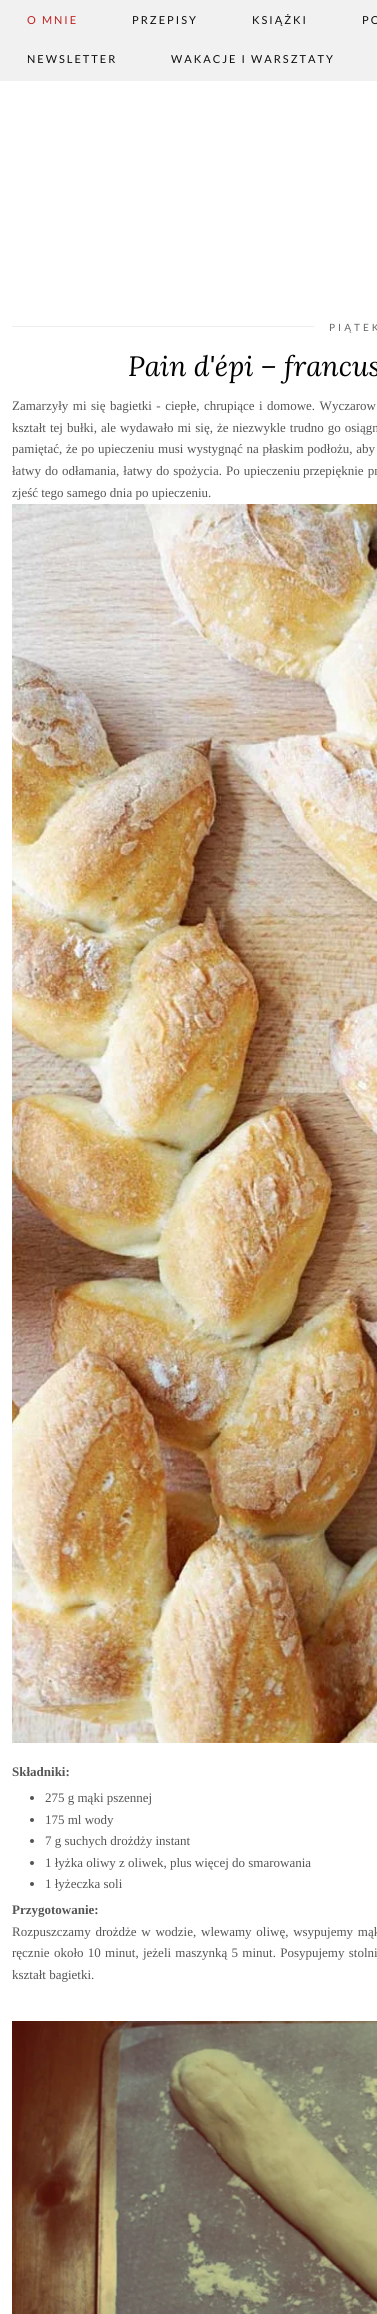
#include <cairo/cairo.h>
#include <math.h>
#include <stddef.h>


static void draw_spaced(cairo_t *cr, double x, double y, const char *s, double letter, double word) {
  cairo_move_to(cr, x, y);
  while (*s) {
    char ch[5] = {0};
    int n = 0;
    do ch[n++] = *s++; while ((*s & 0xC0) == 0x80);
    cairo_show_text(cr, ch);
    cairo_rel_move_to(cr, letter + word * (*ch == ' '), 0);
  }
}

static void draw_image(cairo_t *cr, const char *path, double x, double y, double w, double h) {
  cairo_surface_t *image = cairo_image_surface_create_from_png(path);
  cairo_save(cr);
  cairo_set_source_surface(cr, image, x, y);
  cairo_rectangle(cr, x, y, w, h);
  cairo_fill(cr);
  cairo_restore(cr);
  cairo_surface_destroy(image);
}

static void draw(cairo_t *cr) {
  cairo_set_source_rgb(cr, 1, 1, 1);
  cairo_paint(cr);
  cairo_set_source_rgb(cr, 241 / 255.0, 241 / 255.0, 241 / 255.0);
  cairo_rectangle(cr, 0, 0, 377, 81);
  cairo_fill(cr);
  cairo_set_source_rgb(cr, 238 / 255.0, 238 / 255.0, 238 / 255.0);
  cairo_rectangle(cr, 12, 326, 302, 1);
  cairo_fill(cr);
  draw_image(cr, "images/1.png", 12, 504, 365, 1239);
  cairo_set_source_rgb(cr, 85 / 255.0, 85 / 255.0, 85 / 255.0);
  cairo_arc(cr, 32, 1798, 2, 0, 2 * M_PI);
  cairo_fill(cr);
  cairo_arc(cr, 32, 1820, 2, 0, 2 * M_PI);
  cairo_fill(cr);
  cairo_arc(cr, 32, 1841, 2, 0, 2 * M_PI);
  cairo_fill(cr);
  cairo_arc(cr, 32, 1863, 2, 0, 2 * M_PI);
  cairo_fill(cr);
  cairo_arc(cr, 32, 1884, 2, 0, 2 * M_PI);
  cairo_fill(cr);
  draw_image(cr, "images/2.png", 12, 2021, 365, 293);
  cairo_select_font_face(cr, "Lato", CAIRO_FONT_SLANT_NORMAL, CAIRO_FONT_WEIGHT_NORMAL);
  cairo_set_font_size(cr, 11);
  cairo_set_source_rgb(cr, 192 / 255.0, 33 / 255.0, 33 / 255.0);
  draw_spaced(cr, 27, 24, "O MNIE", 2, 0);
  cairo_set_source_rgb(cr, 13 / 255.0, 13 / 255.0, 13 / 255.0);
  draw_spaced(cr, 132, 24, "PRZEPISY", 2, 0);
  draw_spaced(cr, 252, 24, "KSIĄŻKI", 2, 0);
  draw_spaced(cr, 362, 24, "PO", 2, 0);
  draw_spaced(cr, 27, 63, "NEWSLETTER", 2, 0);
  draw_spaced(cr, 171, 63, "WAKACJE I WARSZTATY", 2, 0);
  cairo_set_font_size(cr, 10);
  cairo_set_source_rgb(cr, 102 / 255.0, 102 / 255.0, 102 / 255.0);
  draw_spaced(cr, 329, 331, "PIĄTEK", 3, 0);
  cairo_select_font_face(cr, "Lora", CAIRO_FONT_SLANT_ITALIC, CAIRO_FONT_WEIGHT_NORMAL);
  cairo_set_font_size(cr, 28);
  cairo_set_source_rgb(cr, 0, 0, 0);
  cairo_move_to(cr, 128, 376);
  cairo_show_text(cr, "Pain d'épi – francus");
  cairo_select_font_face(cr, "Liberation Serif", CAIRO_FONT_SLANT_NORMAL, CAIRO_FONT_WEIGHT_NORMAL);
  cairo_set_font_size(cr, 13);
  cairo_set_source_rgb(cr, 85 / 255.0, 85 / 255.0, 85 / 255.0);
  draw_spaced(cr, 12, 410, "Zamarzyły mi się bagietki - ciepłe, chrupiące i domowe. Wyczarow", 0, 1.25);
  draw_spaced(cr, 12, 432, "kształt tej bułki, ale wydawało mi się, że niezwykle trudno go osiągn", 0, 0.75);
  draw_spaced(cr, 12, 453, "pamiętać, że po upieczeniu musi wystygnąć na płaskim podłożu, aby", 0, 0.5);
  draw_spaced(cr, 12, 475, "łatwy do odłamania, łatwy do spożycia. Po upieczeniu", 0, 0.75);
  draw_spaced(cr, 303, 475, "przepięknie pr", 0, 0.75);
  cairo_move_to(cr, 12, 497);
  cairo_show_text(cr, "zjeść tego samego dnia po upieczeniu.");
  cairo_select_font_face(cr, "Liberation Serif", CAIRO_FONT_SLANT_NORMAL, CAIRO_FONT_WEIGHT_BOLD);
  cairo_move_to(cr, 12, 1776);
  cairo_show_text(cr, "Składniki:");
  cairo_select_font_face(cr, "Liberation Serif", CAIRO_FONT_SLANT_NORMAL, CAIRO_FONT_WEIGHT_NORMAL);
  cairo_move_to(cr, 45, 1802);
  cairo_show_text(cr, "275 g mąki pszennej");
  cairo_move_to(cr, 45, 1824);
  cairo_show_text(cr, "175 ml wody");
  cairo_move_to(cr, 45, 1845);
  cairo_show_text(cr, "7 g suchych drożdży instant");
  cairo_move_to(cr, 45, 1867);
  cairo_show_text(cr, "1 łyżka oliwy z oliwek, plus więcej do smarowania");
  cairo_move_to(cr, 45, 1888);
  cairo_show_text(cr, "1 łyżeczka soli");
  cairo_select_font_face(cr, "Liberation Serif", CAIRO_FONT_SLANT_NORMAL, CAIRO_FONT_WEIGHT_BOLD);
  cairo_move_to(cr, 12, 1914);
  cairo_show_text(cr, "Przygotowanie:");
  cairo_select_font_face(cr, "Liberation Serif", CAIRO_FONT_SLANT_NORMAL, CAIRO_FONT_WEIGHT_NORMAL);
  draw_spaced(cr, 12, 1936, "Rozpuszczamy drożdże w wodzie, wlewamy oliwę, wsypujemy mąk", 0, 1.5);
  cairo_move_to(cr, 12, 1957);
  cairo_show_text(cr, "ręcznie");
  draw_spaced(cr, 54, 1957, "około 10 minut, jeżeli maszynką 5 minut. Posypujemy stolni", 0, 1);
  cairo_move_to(cr, 12, 1979);
  cairo_show_text(cr, "kształt bagietki.");
}

int main(void) {
  cairo_surface_t *surface = cairo_image_surface_create(CAIRO_FORMAT_RGB24, 377, 2314);
  cairo_t *cr = cairo_create(surface);
  cairo_font_options_t *options = cairo_font_options_create();
  cairo_font_options_set_hint_metrics(options, CAIRO_HINT_METRICS_OFF);
  cairo_font_options_set_hint_style(options, CAIRO_HINT_STYLE_NONE);
  cairo_set_font_options(cr, options);
  cairo_set_miter_limit(cr, 4);
  draw(cr);
  cairo_surface_write_to_png(surface, "out.png");
  cairo_font_options_destroy(options);
  cairo_destroy(cr);
  cairo_surface_destroy(surface);
  return 0;
}
